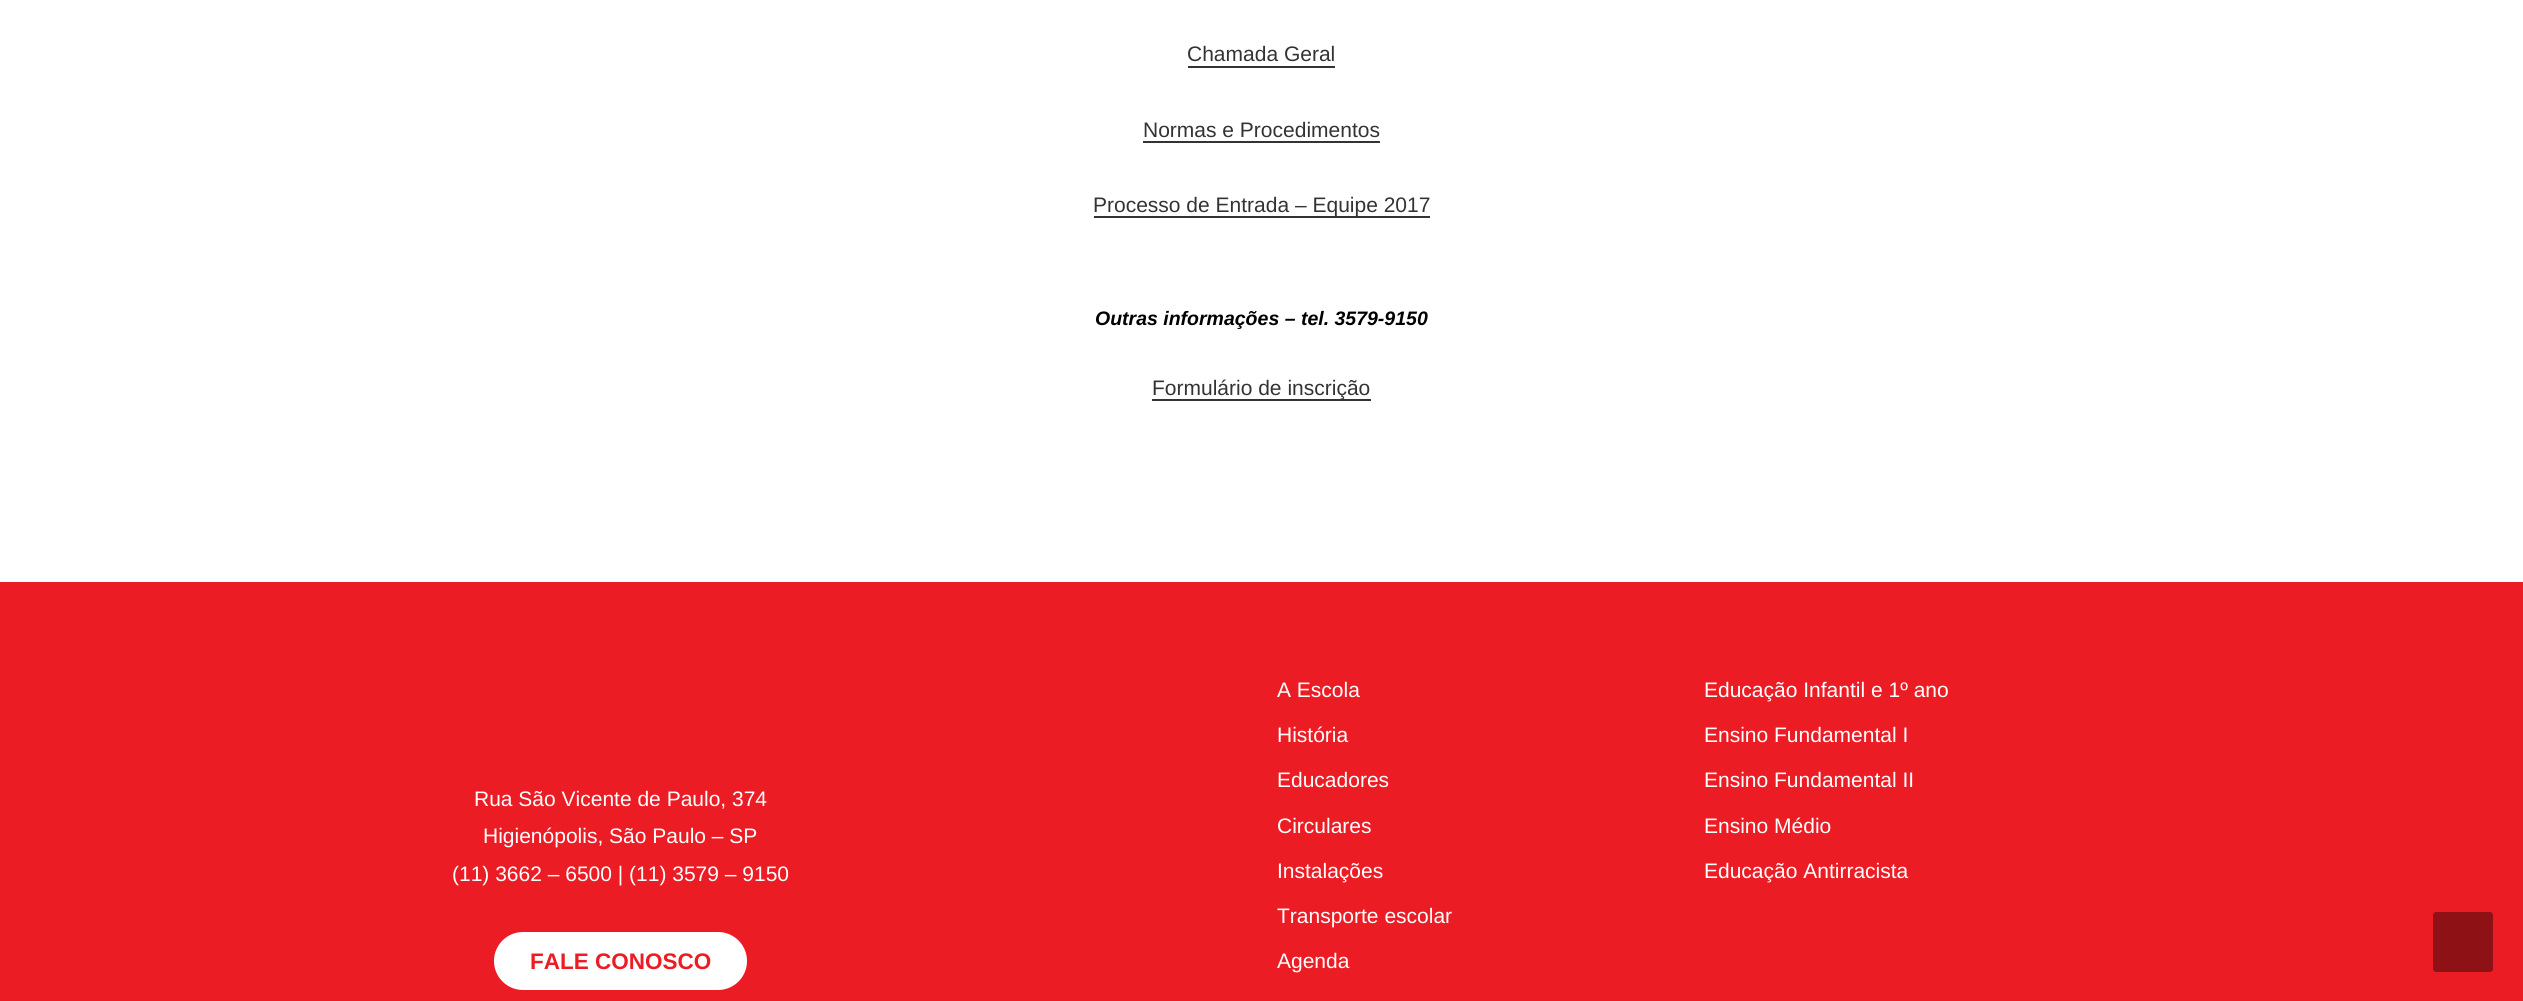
#include <cairo/cairo.h>
#include <math.h>
#include <stddef.h>


static void rounded_rect(cairo_t *cr, double x, double y, double w, double h, double r) {
  cairo_new_sub_path(cr);
  cairo_arc(cr, x + w - r, y + h - r, r, 0, M_PI / 2);
  cairo_arc(cr, x + r, y + h - r, r, M_PI / 2, M_PI);
  cairo_arc(cr, x + r, y + r, r, M_PI, 1.5 * M_PI);
  cairo_arc(cr, x + w - r, y + r, r, 1.5 * M_PI, 2 * M_PI);
  cairo_close_path(cr);
}

static void draw(cairo_t *cr) {
  cairo_set_source_rgb(cr, 1, 1, 1);
  cairo_paint(cr);
  cairo_set_source_rgb(cr, 51 / 255.0, 51 / 255.0, 51 / 255.0);
  cairo_rectangle(cr, 1188, 66, 147, 2);
  cairo_fill(cr);
  cairo_rectangle(cr, 1143, 141, 237, 2);
  cairo_fill(cr);
  cairo_rectangle(cr, 1094, 216, 336, 2);
  cairo_fill(cr);
  cairo_rectangle(cr, 1152, 399, 219, 2);
  cairo_fill(cr);
  cairo_set_source_rgb(cr, 236 / 255.0, 28 / 255.0, 36 / 255.0);
  cairo_rectangle(cr, 0, 582, 2523, 419);
  cairo_fill(cr);
  cairo_set_source_rgb(cr, 1, 1, 1);
  rounded_rect(cr, 494, 932, 253, 58, 29);
  cairo_fill(cr);
  cairo_set_source_rgb(cr, 142 / 255.0, 17 / 255.0, 22 / 255.0);
  rounded_rect(cr, 2433, 912, 60, 60, 3);
  cairo_fill(cr);
  cairo_select_font_face(cr, "Liberation Sans", CAIRO_FONT_SLANT_NORMAL, CAIRO_FONT_WEIGHT_NORMAL);
  cairo_set_font_size(cr, 21);
  cairo_set_source_rgb(cr, 51 / 255.0, 51 / 255.0, 51 / 255.0);
  cairo_move_to(cr, 1187, 61);
  cairo_show_text(cr, "Chamada Geral");
  cairo_move_to(cr, 1143, 137);
  cairo_show_text(cr, "Normas e Procedimentos");
  cairo_move_to(cr, 1093, 212);
  cairo_show_text(cr, "Processo de Entrada – Equipe 2017");
  cairo_select_font_face(cr, "Liberation Sans", CAIRO_FONT_SLANT_ITALIC, CAIRO_FONT_WEIGHT_BOLD);
  cairo_set_font_size(cr, 19.5);
  cairo_set_source_rgb(cr, 0, 0, 0);
  cairo_move_to(cr, 1095, 325);
  cairo_show_text(cr, "Outras informações – tel. 3579-9150");
  cairo_select_font_face(cr, "Liberation Sans", CAIRO_FONT_SLANT_NORMAL, CAIRO_FONT_WEIGHT_NORMAL);
  cairo_set_font_size(cr, 21);
  cairo_set_source_rgb(cr, 51 / 255.0, 51 / 255.0, 51 / 255.0);
  cairo_move_to(cr, 1152, 395);
  cairo_show_text(cr, "Formulário de inscrição");
  cairo_set_source_rgb(cr, 1, 1, 1);
  cairo_move_to(cr, 474, 806);
  cairo_show_text(cr, "Rua São Vicente de Paulo, 374");
  cairo_move_to(cr, 483, 843);
  cairo_show_text(cr, "Higienópolis, São Paulo – SP");
  cairo_move_to(cr, 452, 881);
  cairo_show_text(cr, "(11) 3662 – 6500 | (11) 3579 – 9150");
  cairo_select_font_face(cr, "Liberation Sans", CAIRO_FONT_SLANT_NORMAL, CAIRO_FONT_WEIGHT_BOLD);
  cairo_set_font_size(cr, 22.5);
  cairo_set_source_rgb(cr, 236 / 255.0, 28 / 255.0, 36 / 255.0);
  cairo_move_to(cr, 530, 969);
  cairo_show_text(cr, "FALE CONOSCO");
  cairo_select_font_face(cr, "Liberation Sans", CAIRO_FONT_SLANT_NORMAL, CAIRO_FONT_WEIGHT_NORMAL);
  cairo_set_font_size(cr, 21);
  cairo_set_source_rgb(cr, 1, 1, 1);
  cairo_move_to(cr, 1277, 697);
  cairo_show_text(cr, "A Escola");
  cairo_move_to(cr, 1277, 742);
  cairo_show_text(cr, "História");
  cairo_move_to(cr, 1277, 787);
  cairo_show_text(cr, "Educadores");
  cairo_move_to(cr, 1277, 833);
  cairo_show_text(cr, "Circulares");
  cairo_move_to(cr, 1277, 878);
  cairo_show_text(cr, "Instalações");
  cairo_move_to(cr, 1277, 923);
  cairo_show_text(cr, "Transporte escolar");
  cairo_move_to(cr, 1277, 968);
  cairo_show_text(cr, "Agenda");
  cairo_move_to(cr, 1704, 697);
  cairo_show_text(cr, "Educação Infantil e 1º ano");
  cairo_move_to(cr, 1704, 742);
  cairo_show_text(cr, "Ensino Fundamental I");
  cairo_move_to(cr, 1704, 787);
  cairo_show_text(cr, "Ensino Fundamental II");
  cairo_move_to(cr, 1704, 833);
  cairo_show_text(cr, "Ensino Médio");
  cairo_move_to(cr, 1704, 878);
  cairo_show_text(cr, "Educação Antirracista");
}

int main(void) {
  cairo_surface_t *surface = cairo_image_surface_create(CAIRO_FORMAT_RGB24, 2523, 1001);
  cairo_t *cr = cairo_create(surface);
  cairo_font_options_t *options = cairo_font_options_create();
  cairo_font_options_set_hint_metrics(options, CAIRO_HINT_METRICS_OFF);
  cairo_font_options_set_hint_style(options, CAIRO_HINT_STYLE_NONE);
  cairo_set_font_options(cr, options);
  cairo_set_miter_limit(cr, 4);
  draw(cr);
  cairo_surface_write_to_png(surface, "out.png");
  cairo_font_options_destroy(options);
  cairo_destroy(cr);
  cairo_surface_destroy(surface);
  return 0;
}
